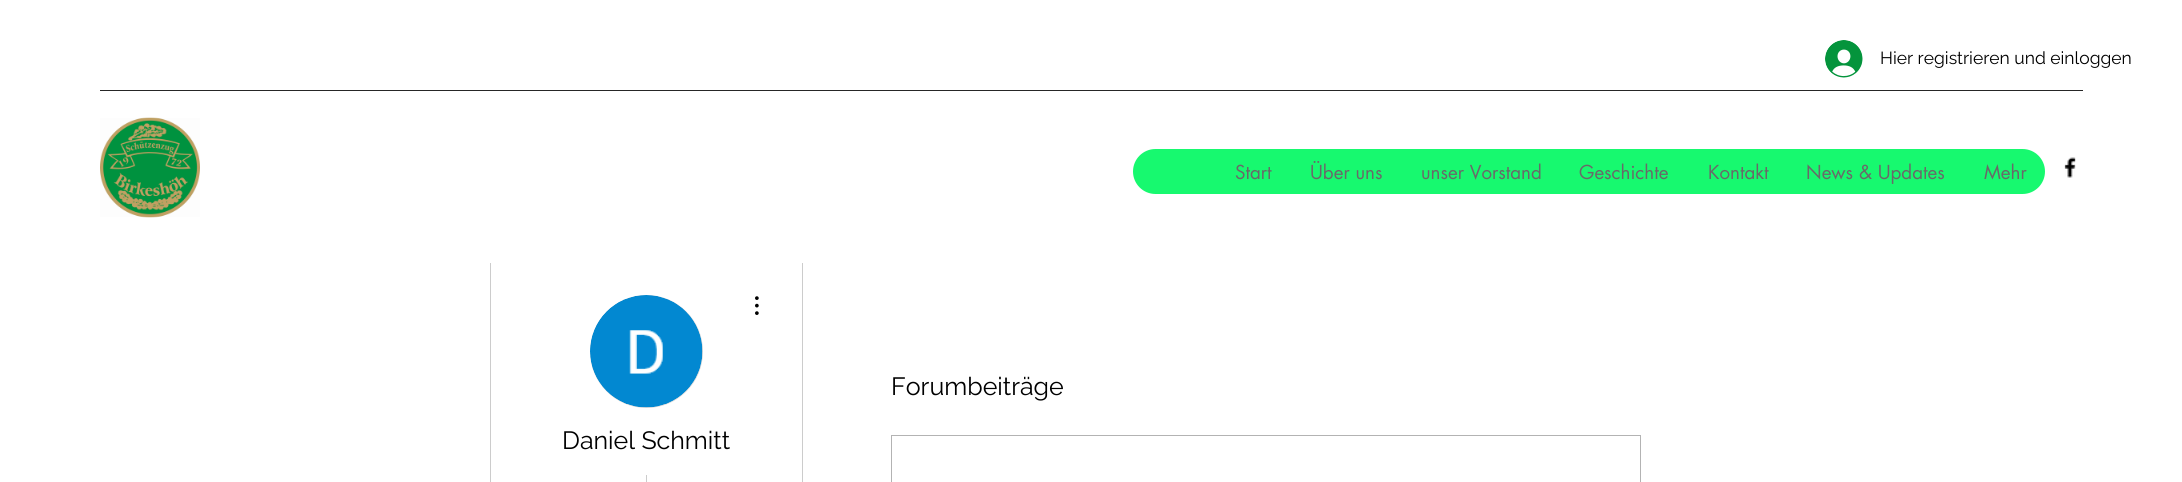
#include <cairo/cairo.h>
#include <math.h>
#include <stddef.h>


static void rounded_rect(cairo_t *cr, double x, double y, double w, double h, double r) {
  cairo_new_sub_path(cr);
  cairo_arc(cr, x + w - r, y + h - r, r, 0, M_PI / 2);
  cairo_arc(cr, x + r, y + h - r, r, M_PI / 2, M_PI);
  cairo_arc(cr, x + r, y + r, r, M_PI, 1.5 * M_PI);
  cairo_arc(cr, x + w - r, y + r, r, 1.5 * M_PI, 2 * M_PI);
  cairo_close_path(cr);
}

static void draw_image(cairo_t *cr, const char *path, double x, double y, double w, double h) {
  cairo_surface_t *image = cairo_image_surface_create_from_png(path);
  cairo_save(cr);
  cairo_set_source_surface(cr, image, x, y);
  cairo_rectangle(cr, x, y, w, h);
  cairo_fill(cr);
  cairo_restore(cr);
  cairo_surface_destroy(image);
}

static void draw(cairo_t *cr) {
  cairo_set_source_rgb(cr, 1, 1, 1);
  cairo_paint(cr);
  draw_image(cr, "images/1.png", 1825, 40, 38, 38);
  cairo_set_source_rgb(cr, 38 / 255.0, 38 / 255.0, 38 / 255.0);
  cairo_rectangle(cr, 100, 90, 1983, 1);
  cairo_fill(cr);
  draw_image(cr, "images/2.png", 100, 117, 100, 101);
  cairo_set_source_rgb(cr, 23 / 255.0, 249 / 255.0, 111 / 255.0);
  rounded_rect(cr, 1133, 149, 912, 45, 22.5);
  cairo_fill(cr);
  draw_image(cr, "images/3.png", 2064, 157, 12, 21);
  cairo_rectangle(cr, 490.5, 258.5, 312, 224);
  cairo_set_source_rgb(cr, 204 / 255.0, 204 / 255.0, 204 / 255.0);
  cairo_set_line_width(cr, 1);
  cairo_stroke(cr);
  cairo_set_source_rgb(cr, 1, 1, 1);
  cairo_rectangle(cr, 490, 258, 313, 5);
  cairo_fill(cr);
  cairo_rectangle(cr, 891.5, 435.5, 749, 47);
  cairo_set_source_rgb(cr, 179 / 255.0, 179 / 255.0, 179 / 255.0);
  cairo_stroke(cr);
  cairo_set_source_rgb(cr, 216 / 255.0, 216 / 255.0, 216 / 255.0);
  cairo_arc(cr, 646.5, 351.5, 56.5, 0, 2 * M_PI);
  cairo_fill(cr);
  draw_image(cr, "images/4.png", 590, 295, 113, 113);
  draw_image(cr, "images/5.png", 755, 296, 4, 19);
  cairo_set_source_rgb(cr, 204 / 255.0, 204 / 255.0, 204 / 255.0);
  cairo_rectangle(cr, 646, 475, 1, 7);
  cairo_fill(cr);
  cairo_select_font_face(cr, "Raleway", CAIRO_FONT_SLANT_NORMAL, CAIRO_FONT_WEIGHT_NORMAL);
  cairo_set_font_size(cr, 17.5);
  cairo_set_source_rgb(cr, 0, 0, 0);
  cairo_move_to(cr, 1880, 64);
  cairo_show_text(cr, "Hier registrieren und einloggen");
  cairo_select_font_face(cr, "futura", CAIRO_FONT_SLANT_NORMAL, CAIRO_FONT_WEIGHT_NORMAL);
  cairo_set_font_size(cr, 18.75);
  cairo_set_source_rgb(cr, 105 / 255.0, 105 / 255.0, 105 / 255.0);
  cairo_move_to(cr, 1235, 179);
  cairo_show_text(cr, "Start");
  cairo_move_to(cr, 1310, 179);
  cairo_show_text(cr, "Über uns");
  cairo_move_to(cr, 1421, 179);
  cairo_show_text(cr, "unser Vorstand");
  cairo_move_to(cr, 1579, 179);
  cairo_show_text(cr, "Geschichte");
  cairo_move_to(cr, 1708, 179);
  cairo_show_text(cr, "Kontakt");
  cairo_move_to(cr, 1806, 179);
  cairo_show_text(cr, "News & Updates");
  cairo_move_to(cr, 1984, 179);
  cairo_show_text(cr, "Mehr");
  cairo_select_font_face(cr, "Raleway", CAIRO_FONT_SLANT_NORMAL, CAIRO_FONT_WEIGHT_NORMAL);
  cairo_set_font_size(cr, 25);
  cairo_set_source_rgb(cr, 0, 0, 0);
  cairo_move_to(cr, 891, 395);
  cairo_show_text(cr, "Forumbeiträge");
  cairo_move_to(cr, 562, 449);
  cairo_show_text(cr, "Daniel Schmitt");
}

int main(void) {
  cairo_surface_t *surface = cairo_image_surface_create(CAIRO_FORMAT_RGB24, 2182, 482);
  cairo_t *cr = cairo_create(surface);
  cairo_font_options_t *options = cairo_font_options_create();
  cairo_font_options_set_hint_metrics(options, CAIRO_HINT_METRICS_OFF);
  cairo_font_options_set_hint_style(options, CAIRO_HINT_STYLE_NONE);
  cairo_set_font_options(cr, options);
  cairo_set_miter_limit(cr, 4);
  draw(cr);
  cairo_surface_write_to_png(surface, "out.png");
  cairo_font_options_destroy(options);
  cairo_destroy(cr);
  cairo_surface_destroy(surface);
  return 0;
}
